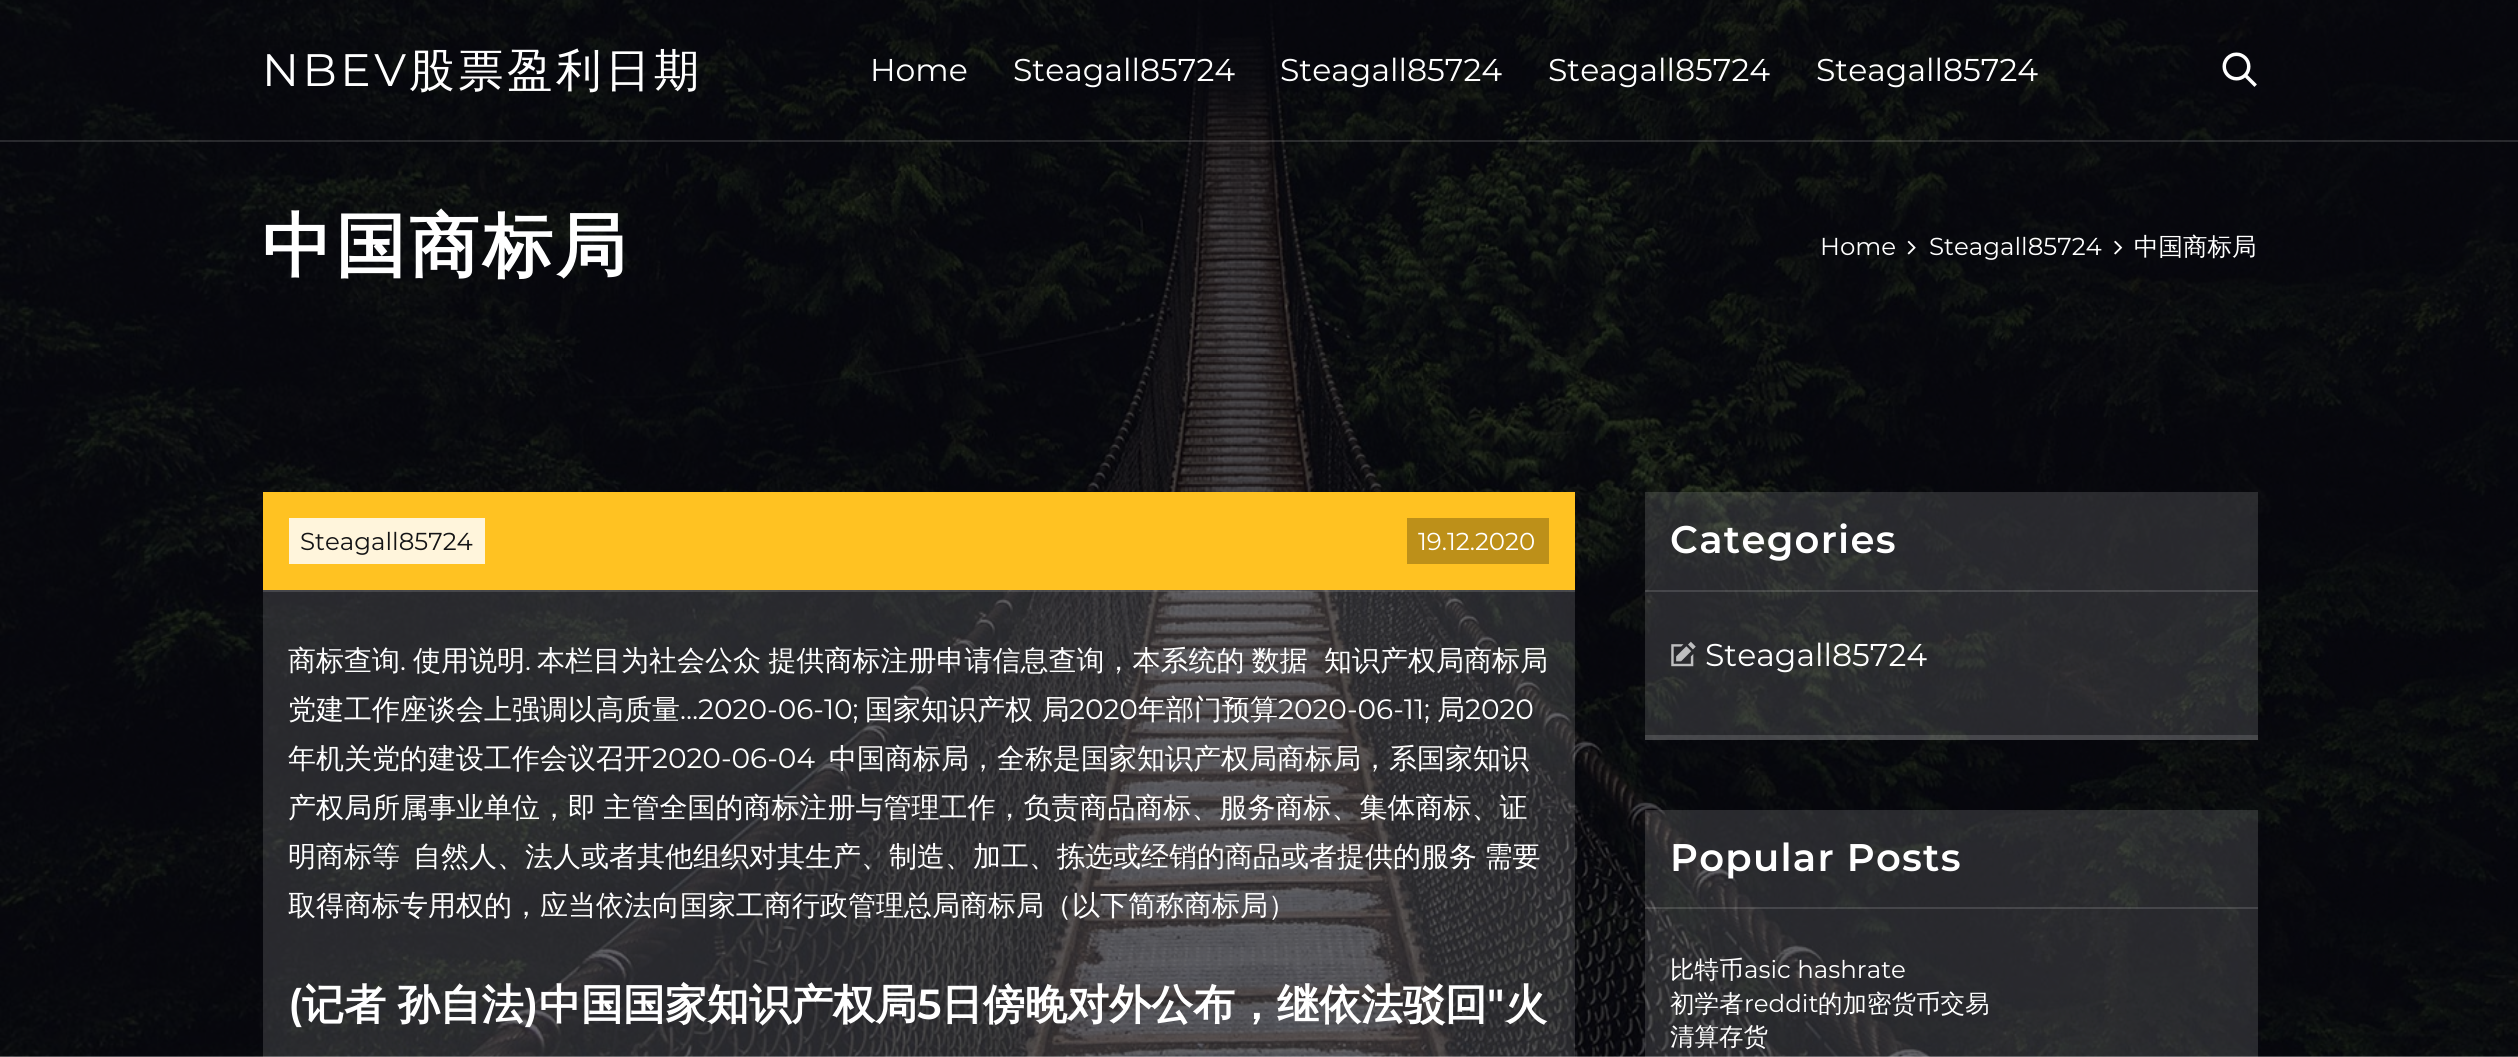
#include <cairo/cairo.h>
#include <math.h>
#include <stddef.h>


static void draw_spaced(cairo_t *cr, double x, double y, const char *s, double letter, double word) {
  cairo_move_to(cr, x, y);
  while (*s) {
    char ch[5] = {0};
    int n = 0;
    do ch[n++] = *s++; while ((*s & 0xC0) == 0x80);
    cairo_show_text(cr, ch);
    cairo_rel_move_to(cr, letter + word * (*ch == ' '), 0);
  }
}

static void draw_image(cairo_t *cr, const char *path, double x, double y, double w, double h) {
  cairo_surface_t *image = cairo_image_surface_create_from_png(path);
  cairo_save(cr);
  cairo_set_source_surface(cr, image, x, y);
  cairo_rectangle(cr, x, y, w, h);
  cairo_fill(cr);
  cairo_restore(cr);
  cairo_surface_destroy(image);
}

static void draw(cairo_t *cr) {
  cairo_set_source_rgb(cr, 1, 1, 1);
  cairo_paint(cr);
  draw_image(cr, "images/1.png", 0, 0, 2518, 1057);
  cairo_set_source_rgba(cr, 1, 1, 1, 0.14);
  cairo_rectangle(cr, 0, 140, 2518, 2);
  cairo_fill(cr);
  draw_image(cr, "images/2.png", 2222, 52, 35, 35);
  draw_image(cr, "images/3.png", 1907, 240, 9, 15);
  draw_image(cr, "images/4.png", 2114, 240, 9, 15);
  cairo_rectangle(cr, 263, 590, 1312, 467);
  cairo_fill(cr);
  cairo_set_source_rgb(cr, 1, 194 / 255.0, 34 / 255.0);
  cairo_rectangle(cr, 263, 492, 1312, 98);
  cairo_fill(cr);
  cairo_set_source_rgb(cr, 1, 245 / 255.0, 220 / 255.0);
  cairo_rectangle(cr, 289, 518, 196, 46);
  cairo_fill(cr);
  cairo_set_source_rgb(cr, 189 / 255.0, 144 / 255.0, 25 / 255.0);
  cairo_rectangle(cr, 1407, 518, 142, 46);
  cairo_fill(cr);
  cairo_set_source_rgba(cr, 1, 1, 1, 0.14);
  cairo_rectangle(cr, 263, 590, 1312, 2);
  cairo_fill(cr);
  cairo_rectangle(cr, 1645, 492, 613, 248);
  cairo_fill(cr);
  cairo_rectangle(cr, 1645, 735, 613, 5);
  cairo_fill(cr);
  cairo_rectangle(cr, 1645, 590, 613, 2);
  cairo_fill(cr);
  draw_image(cr, "images/5.png", 1671, 641, 25, 26);
  cairo_rectangle(cr, 1645, 810, 613, 247);
  cairo_fill(cr);
  cairo_rectangle(cr, 1645, 907, 613, 2);
  cairo_fill(cr);
  cairo_select_font_face(cr, "Montserrat", CAIRO_FONT_SLANT_NORMAL, CAIRO_FONT_WEIGHT_NORMAL);
  cairo_set_font_size(cr, 45.5);
  cairo_set_source_rgb(cr, 1, 1, 1);
  draw_spaced(cr, 262, 86, "NBEV", 3.5, 0);
  cairo_select_font_face(cr, "WenQuanYi Zen Hei Medium", CAIRO_FONT_SLANT_NORMAL, CAIRO_FONT_WEIGHT_NORMAL);
  draw_spaced(cr, 409, 86, "股票盈利日期", 3.5, 0);
  cairo_select_font_face(cr, "Montserrat", CAIRO_FONT_SLANT_NORMAL, CAIRO_FONT_WEIGHT_NORMAL);
  cairo_set_font_size(cr, 31.5);
  cairo_move_to(cr, 870, 81);
  cairo_show_text(cr, "Home");
  cairo_move_to(cr, 1013, 81);
  cairo_show_text(cr, "Steagall85724");
  cairo_move_to(cr, 1280, 81);
  cairo_show_text(cr, "Steagall85724");
  cairo_move_to(cr, 1548, 81);
  cairo_show_text(cr, "Steagall85724");
  cairo_move_to(cr, 1816, 81);
  cairo_show_text(cr, "Steagall85724");
  cairo_select_font_face(cr, "WenQuanYi Zen Hei", CAIRO_FONT_SLANT_NORMAL, CAIRO_FONT_WEIGHT_BOLD);
  cairo_set_font_size(cr, 70);
  draw_spaced(cr, 262, 270, "中国商标局", 3.5, 0);
  cairo_select_font_face(cr, "Montserrat", CAIRO_FONT_SLANT_NORMAL, CAIRO_FONT_WEIGHT_NORMAL);
  cairo_set_font_size(cr, 24.5);
  cairo_move_to(cr, 1820, 255);
  cairo_show_text(cr, "Home");
  cairo_move_to(cr, 1929, 255);
  cairo_show_text(cr, "Steagall85724");
  cairo_select_font_face(cr, "WenQuanYi Zen Hei Medium", CAIRO_FONT_SLANT_NORMAL, CAIRO_FONT_WEIGHT_NORMAL);
  cairo_move_to(cr, 2134, 255);
  cairo_show_text(cr, "中国商标局");
  cairo_select_font_face(cr, "Montserrat", CAIRO_FONT_SLANT_NORMAL, CAIRO_FONT_WEIGHT_NORMAL);
  cairo_set_source_rgb(cr, 20 / 255.0, 20 / 255.0, 22 / 255.0);
  cairo_move_to(cr, 300, 550);
  cairo_show_text(cr, "Steagall85724");
  cairo_set_source_rgb(cr, 1, 1, 1);
  cairo_move_to(cr, 1418, 550);
  cairo_show_text(cr, "19.12.2020");
  cairo_select_font_face(cr, "WenQuanYi Zen Hei Medium", CAIRO_FONT_SLANT_NORMAL, CAIRO_FONT_WEIGHT_NORMAL);
  cairo_set_font_size(cr, 28);
  cairo_move_to(cr, 288, 670);
  cairo_show_text(cr, "商标查询");
  cairo_select_font_face(cr, "Montserrat", CAIRO_FONT_SLANT_NORMAL, CAIRO_FONT_WEIGHT_NORMAL);
  cairo_move_to(cr, 400, 670);
  cairo_show_text(cr, ".");
  cairo_select_font_face(cr, "WenQuanYi Zen Hei Medium", CAIRO_FONT_SLANT_NORMAL, CAIRO_FONT_WEIGHT_NORMAL);
  cairo_move_to(cr, 413, 670);
  cairo_show_text(cr, "使用说明");
  cairo_select_font_face(cr, "Montserrat", CAIRO_FONT_SLANT_NORMAL, CAIRO_FONT_WEIGHT_NORMAL);
  cairo_move_to(cr, 525, 670);
  cairo_show_text(cr, ".");
  cairo_select_font_face(cr, "WenQuanYi Zen Hei Medium", CAIRO_FONT_SLANT_NORMAL, CAIRO_FONT_WEIGHT_NORMAL);
  draw_spaced(cr, 537, 670, "本栏目为社会公众 提供商标注册申请信息查询，本系统的 数据", 0, -1);
  cairo_move_to(cr, 1324, 670);
  cairo_show_text(cr, "知识产权局商标局");
  cairo_move_to(cr, 288, 719);
  cairo_show_text(cr, "党建工作座谈会上强调以高质量");
  cairo_select_font_face(cr, "Montserrat", CAIRO_FONT_SLANT_NORMAL, CAIRO_FONT_WEIGHT_NORMAL);
  cairo_move_to(cr, 680, 719);
  cairo_show_text(cr, "…2020-06-10;");
  cairo_select_font_face(cr, "WenQuanYi Zen Hei Medium", CAIRO_FONT_SLANT_NORMAL, CAIRO_FONT_WEIGHT_NORMAL);
  cairo_move_to(cr, 865, 719);
  cairo_show_text(cr, "国家知识产权 局");
  cairo_select_font_face(cr, "Montserrat", CAIRO_FONT_SLANT_NORMAL, CAIRO_FONT_WEIGHT_NORMAL);
  cairo_move_to(cr, 1069, 719);
  cairo_show_text(cr, "2020");
  cairo_select_font_face(cr, "WenQuanYi Zen Hei Medium", CAIRO_FONT_SLANT_NORMAL, CAIRO_FONT_WEIGHT_NORMAL);
  cairo_move_to(cr, 1138, 719);
  cairo_show_text(cr, "年部门预算");
  cairo_select_font_face(cr, "Montserrat", CAIRO_FONT_SLANT_NORMAL, CAIRO_FONT_WEIGHT_NORMAL);
  cairo_move_to(cr, 1278, 719);
  cairo_show_text(cr, "2020-06-11;");
  cairo_select_font_face(cr, "WenQuanYi Zen Hei Medium", CAIRO_FONT_SLANT_NORMAL, CAIRO_FONT_WEIGHT_NORMAL);
  cairo_move_to(cr, 1437, 719);
  cairo_show_text(cr, "局");
  cairo_select_font_face(cr, "Montserrat", CAIRO_FONT_SLANT_NORMAL, CAIRO_FONT_WEIGHT_NORMAL);
  cairo_move_to(cr, 1465, 719);
  cairo_show_text(cr, "2020");
  cairo_select_font_face(cr, "WenQuanYi Zen Hei Medium", CAIRO_FONT_SLANT_NORMAL, CAIRO_FONT_WEIGHT_NORMAL);
  cairo_move_to(cr, 288, 768);
  cairo_show_text(cr, "年机关党的建设工作会议召开");
  cairo_select_font_face(cr, "Montserrat", CAIRO_FONT_SLANT_NORMAL, CAIRO_FONT_WEIGHT_NORMAL);
  cairo_move_to(cr, 652, 768);
  cairo_show_text(cr, "2020-06-04");
  cairo_select_font_face(cr, "WenQuanYi Zen Hei Medium", CAIRO_FONT_SLANT_NORMAL, CAIRO_FONT_WEIGHT_NORMAL);
  cairo_move_to(cr, 829, 768);
  cairo_show_text(cr, "中国商标局，全称是国家知识产权局商标局，系国家知识");
  draw_spaced(cr, 288, 817, "产权局所属事业单位，即 主管全国的商标注册与管理工作，负责商品商标、服务商标、集体商标、证", 0, -1);
  cairo_move_to(cr, 288, 866);
  cairo_show_text(cr, "明商标等");
  draw_spaced(cr, 413, 866, "自然人、法人或者其他组织对其生产、制造、加工、拣选或经销的商品或者提供的服务 需要", 0, -1);
  cairo_move_to(cr, 288, 915);
  cairo_show_text(cr, "取得商标专用权的，应当依法向国家工商行政管理总局商标局（以下简称商标局）");
  cairo_select_font_face(cr, "Montserrat SemiBold", CAIRO_FONT_SLANT_NORMAL, CAIRO_FONT_WEIGHT_NORMAL);
  cairo_set_font_size(cr, 42);
  cairo_move_to(cr, 288, 1019);
  cairo_show_text(cr, "(");
  cairo_select_font_face(cr, "WenQuanYi Zen Hei", CAIRO_FONT_SLANT_NORMAL, CAIRO_FONT_WEIGHT_BOLD);
  draw_spaced(cr, 302, 1019, "记者 孙自法", 0, -1);
  cairo_select_font_face(cr, "Montserrat SemiBold", CAIRO_FONT_SLANT_NORMAL, CAIRO_FONT_WEIGHT_NORMAL);
  cairo_move_to(cr, 524, 1019);
  cairo_show_text(cr, ")");
  cairo_select_font_face(cr, "WenQuanYi Zen Hei", CAIRO_FONT_SLANT_NORMAL, CAIRO_FONT_WEIGHT_BOLD);
  cairo_move_to(cr, 539, 1019);
  cairo_show_text(cr, "中国国家知识产权局");
  cairo_select_font_face(cr, "Montserrat SemiBold", CAIRO_FONT_SLANT_NORMAL, CAIRO_FONT_WEIGHT_NORMAL);
  cairo_move_to(cr, 917, 1019);
  cairo_show_text(cr, "5");
  cairo_select_font_face(cr, "WenQuanYi Zen Hei", CAIRO_FONT_SLANT_NORMAL, CAIRO_FONT_WEIGHT_BOLD);
  cairo_move_to(cr, 941, 1019);
  cairo_show_text(cr, "日傍晚对外公布，继依法驳回");
  cairo_select_font_face(cr, "Montserrat SemiBold", CAIRO_FONT_SLANT_NORMAL, CAIRO_FONT_WEIGHT_NORMAL);
  cairo_move_to(cr, 1487, 1019);
  cairo_show_text(cr, "\"");
  cairo_select_font_face(cr, "WenQuanYi Zen Hei", CAIRO_FONT_SLANT_NORMAL, CAIRO_FONT_WEIGHT_BOLD);
  cairo_move_to(cr, 1505, 1019);
  cairo_show_text(cr, "火");
  cairo_select_font_face(cr, "Montserrat SemiBold", CAIRO_FONT_SLANT_NORMAL, CAIRO_FONT_WEIGHT_NORMAL);
  cairo_set_font_size(cr, 38.5);
  draw_spaced(cr, 1670, 553, "Categories", 1.25, 0);
  cairo_select_font_face(cr, "Montserrat", CAIRO_FONT_SLANT_NORMAL, CAIRO_FONT_WEIGHT_NORMAL);
  cairo_set_font_size(cr, 31.5);
  cairo_move_to(cr, 1705, 666);
  cairo_show_text(cr, "Steagall85724");
  cairo_select_font_face(cr, "Montserrat SemiBold", CAIRO_FONT_SLANT_NORMAL, CAIRO_FONT_WEIGHT_NORMAL);
  cairo_set_font_size(cr, 38.5);
  draw_spaced(cr, 1670, 871, "Popular Posts", 1.25, 0);
  cairo_select_font_face(cr, "WenQuanYi Zen Hei Medium", CAIRO_FONT_SLANT_NORMAL, CAIRO_FONT_WEIGHT_NORMAL);
  cairo_set_font_size(cr, 24.5);
  cairo_move_to(cr, 1670, 978);
  cairo_show_text(cr, "比特币");
  cairo_select_font_face(cr, "Montserrat", CAIRO_FONT_SLANT_NORMAL, CAIRO_FONT_WEIGHT_NORMAL);
  cairo_move_to(cr, 1744, 978);
  cairo_show_text(cr, "asic hashrate");
  cairo_select_font_face(cr, "WenQuanYi Zen Hei Medium", CAIRO_FONT_SLANT_NORMAL, CAIRO_FONT_WEIGHT_NORMAL);
  cairo_move_to(cr, 1670, 1012);
  cairo_show_text(cr, "初学者");
  cairo_select_font_face(cr, "Montserrat", CAIRO_FONT_SLANT_NORMAL, CAIRO_FONT_WEIGHT_NORMAL);
  cairo_move_to(cr, 1744, 1012);
  cairo_show_text(cr, "reddit");
  cairo_select_font_face(cr, "WenQuanYi Zen Hei Medium", CAIRO_FONT_SLANT_NORMAL, CAIRO_FONT_WEIGHT_NORMAL);
  cairo_move_to(cr, 1818, 1012);
  cairo_show_text(cr, "的加密货币交易");
  cairo_move_to(cr, 1670, 1045);
  cairo_show_text(cr, "清算存货");
}

int main(void) {
  cairo_surface_t *surface = cairo_image_surface_create(CAIRO_FORMAT_RGB24, 2518, 1057);
  cairo_t *cr = cairo_create(surface);
  cairo_font_options_t *options = cairo_font_options_create();
  cairo_font_options_set_hint_metrics(options, CAIRO_HINT_METRICS_OFF);
  cairo_font_options_set_hint_style(options, CAIRO_HINT_STYLE_NONE);
  cairo_set_font_options(cr, options);
  cairo_set_miter_limit(cr, 4);
  draw(cr);
  cairo_surface_write_to_png(surface, "out.png");
  cairo_font_options_destroy(options);
  cairo_destroy(cr);
  cairo_surface_destroy(surface);
  return 0;
}
